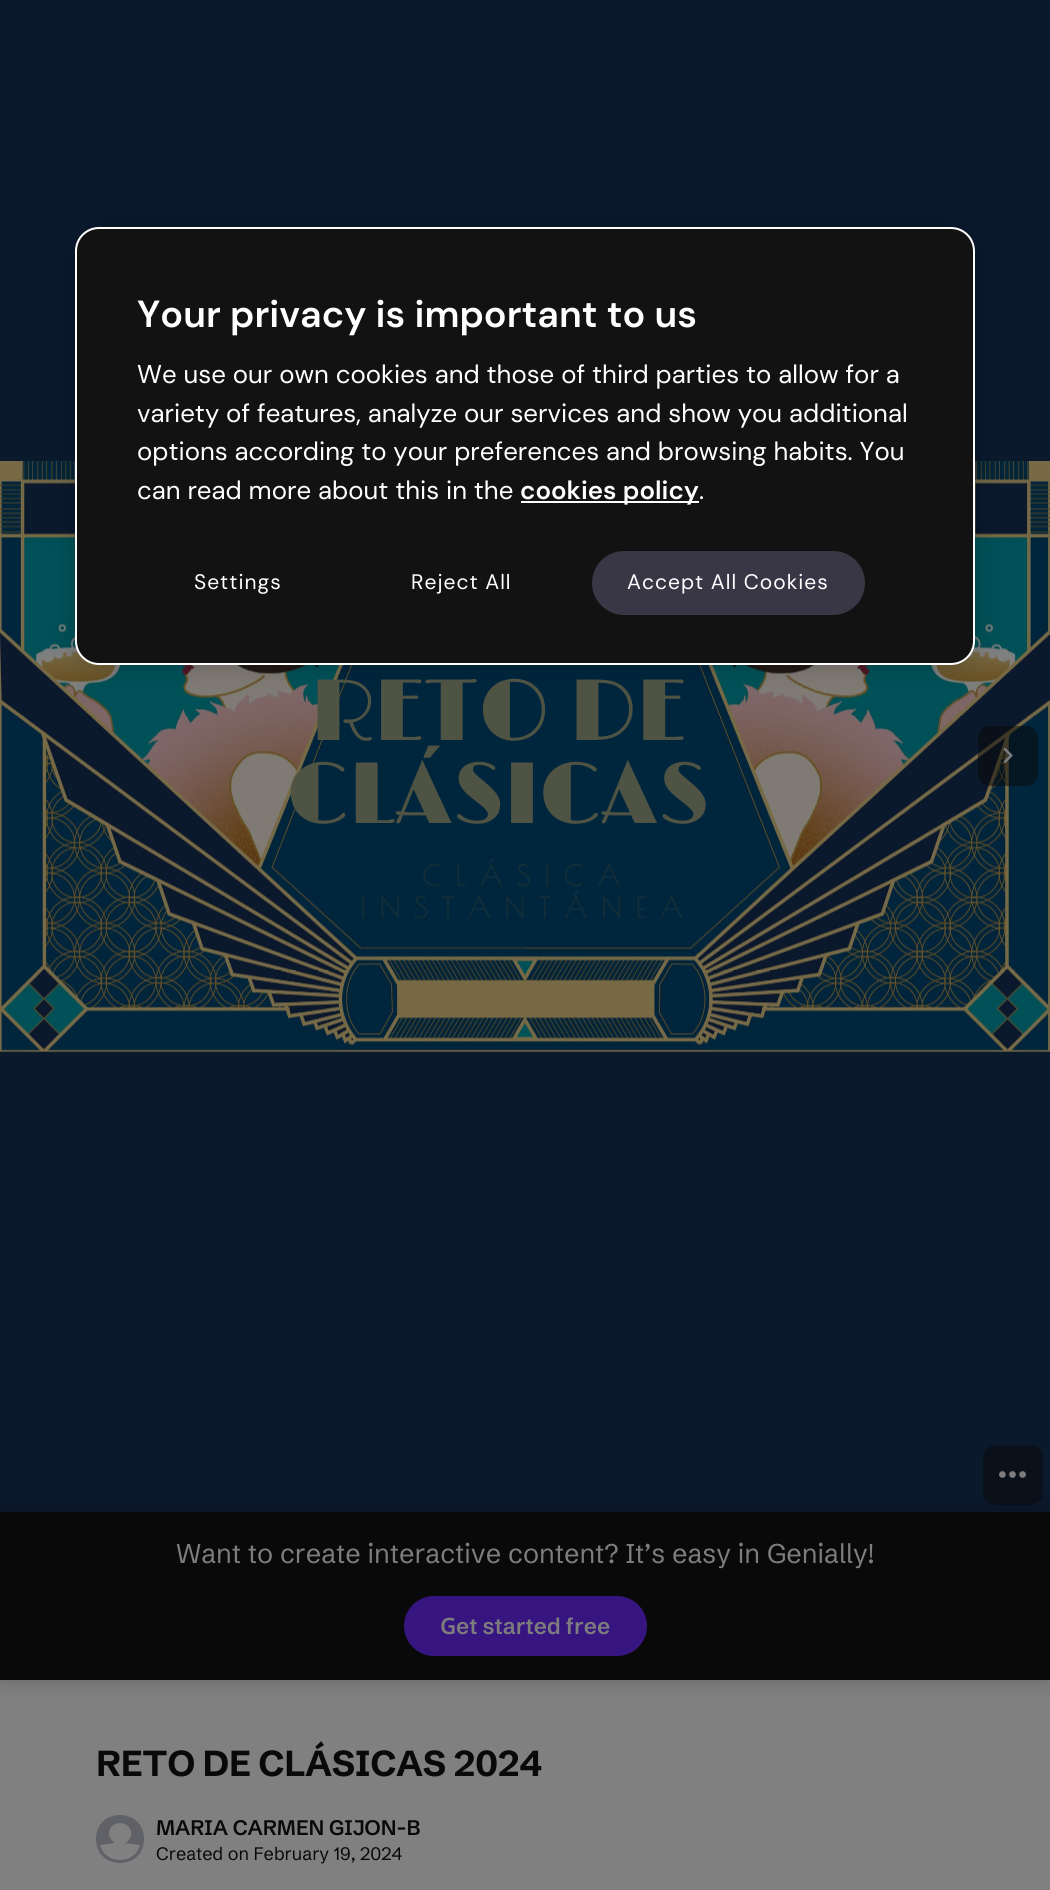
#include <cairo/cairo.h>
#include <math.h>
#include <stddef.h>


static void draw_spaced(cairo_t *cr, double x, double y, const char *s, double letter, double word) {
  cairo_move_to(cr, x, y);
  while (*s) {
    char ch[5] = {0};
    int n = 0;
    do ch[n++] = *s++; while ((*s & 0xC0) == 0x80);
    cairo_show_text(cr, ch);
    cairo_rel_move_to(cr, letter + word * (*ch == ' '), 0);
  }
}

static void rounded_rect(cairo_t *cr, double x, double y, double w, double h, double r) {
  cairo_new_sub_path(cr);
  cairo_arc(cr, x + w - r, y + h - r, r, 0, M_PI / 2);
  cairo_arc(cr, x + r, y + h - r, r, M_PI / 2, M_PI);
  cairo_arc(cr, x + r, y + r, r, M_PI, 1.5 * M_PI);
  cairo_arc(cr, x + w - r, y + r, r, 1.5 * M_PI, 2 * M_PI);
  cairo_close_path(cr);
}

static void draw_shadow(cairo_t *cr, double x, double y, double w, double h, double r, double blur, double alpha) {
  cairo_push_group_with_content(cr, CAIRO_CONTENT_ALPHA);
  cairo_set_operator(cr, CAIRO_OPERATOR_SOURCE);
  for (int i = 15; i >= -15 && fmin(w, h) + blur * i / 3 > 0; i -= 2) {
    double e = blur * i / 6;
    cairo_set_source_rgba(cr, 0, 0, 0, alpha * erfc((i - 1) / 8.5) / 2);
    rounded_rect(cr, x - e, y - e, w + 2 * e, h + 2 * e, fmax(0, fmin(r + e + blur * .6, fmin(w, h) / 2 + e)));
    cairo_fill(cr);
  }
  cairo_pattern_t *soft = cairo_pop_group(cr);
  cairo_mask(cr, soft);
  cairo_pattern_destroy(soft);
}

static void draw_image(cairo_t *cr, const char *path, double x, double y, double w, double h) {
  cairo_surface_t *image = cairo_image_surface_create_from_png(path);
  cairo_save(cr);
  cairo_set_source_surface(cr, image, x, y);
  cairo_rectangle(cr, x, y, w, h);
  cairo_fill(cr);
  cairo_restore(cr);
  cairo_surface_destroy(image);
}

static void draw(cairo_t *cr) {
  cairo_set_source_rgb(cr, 128 / 255.0, 128 / 255.0, 128 / 255.0);
  cairo_paint(cr);
  cairo_set_source_rgb(cr, 11 / 255.0, 25 / 255.0, 45 / 255.0);
  cairo_rectangle(cr, 0, 0, 1050, 1512);
  cairo_fill(cr);
  draw_image(cr, "images/1.png", 0, 461, 1050, 591);
  cairo_set_source_rgb(cr, 0, 0, 0);
  draw_shadow(cr, 75, 227, 900, 438, 24, 13.5, 0.2);
  cairo_set_source_rgb(cr, 18 / 255.0, 18 / 255.0, 18 / 255.0);
  rounded_rect(cr, 76, 228, 898, 436, 23);
  cairo_fill_preserve(cr);
  cairo_set_source_rgb(cr, 1, 1, 1);
  cairo_stroke(cr);
  cairo_rectangle(cr, 521, 501, 178, 2);
  cairo_fill(cr);
  cairo_set_source_rgb(cr, 57 / 255.0, 54 / 255.0, 69 / 255.0);
  rounded_rect(cr, 591, 550, 275, 66, 33);
  cairo_fill_preserve(cr);
  cairo_set_source_rgb(cr, 18 / 255.0, 18 / 255.0, 18 / 255.0);
  cairo_stroke(cr);
  cairo_set_source_rgba(cr, 9 / 255.0, 9 / 255.0, 9 / 255.0, 0.5);
  rounded_rect(cr, 978, 726, 60, 60, 12);
  cairo_fill(cr);
  draw_image(cr, "images/2.png", 1003, 748, 10, 15);
  cairo_set_source_rgb(cr, 10 / 255.0, 17 / 255.0, 27 / 255.0);
  rounded_rect(cr, 983, 1445, 60, 60, 12);
  cairo_fill(cr);
  draw_image(cr, "images/3.png", 999, 1471, 27, 7);
  cairo_set_source_rgb(cr, 9 / 255.0, 9 / 255.0, 9 / 255.0);
  draw_shadow(cr, 0, 1509, 1050, 168, 0, 10, 0.3);
  cairo_set_source_rgb(cr, 9 / 255.0, 9 / 255.0, 9 / 255.0);
  cairo_rectangle(cr, 0, 1512, 1050, 168);
  cairo_fill(cr);
  cairo_set_source_rgb(cr, 54 / 255.0, 21 / 255.0, 128 / 255.0);
  rounded_rect(cr, 404, 1596, 243, 60, 30);
  cairo_fill(cr);
  cairo_set_source_rgb(cr, 96 / 255.0, 97 / 255.0, 102 / 255.0);
  cairo_new_path(cr);
  cairo_move_to(cr, 144, 1839);
  cairo_curve_to(cr, 144, 1871, 96, 1871, 96, 1839);
  cairo_curve_to(cr, 96, 1807, 144, 1807, 144, 1839);
  cairo_fill(cr);
  cairo_set_source_rgb(cr, 128 / 255.0, 128 / 255.0, 128 / 255.0);
  cairo_new_path(cr);
  cairo_move_to(cr, 140, 1845);
  cairo_line_to(cr, 125, 1843);
  cairo_curve_to(cr, 128, 1842, 130, 1839, 131, 1836);
  cairo_curve_to(cr, 134, 1820, 108, 1818, 109, 1835);
  cairo_curve_to(cr, 110, 1838, 112, 1841, 115, 1843);
  cairo_line_to(cr, 100, 1845);
  cairo_curve_to(cr, 105, 1865, 135, 1865, 140, 1845);
  cairo_fill(cr);
  cairo_select_font_face(cr, "DM Sans SemiBold", CAIRO_FONT_SLANT_NORMAL, CAIRO_FONT_WEIGHT_NORMAL);
  cairo_set_font_size(cr, 37.75);
  cairo_set_source_rgb(cr, 1, 1, 1);
  cairo_move_to(cr, 137, 327);
  cairo_show_text(cr, "Your privacy is important to us");
  cairo_select_font_face(cr, "DM Sans", CAIRO_FONT_SLANT_NORMAL, CAIRO_FONT_WEIGHT_NORMAL);
  cairo_set_font_size(cr, 25.8);
  cairo_move_to(cr, 137, 383);
  cairo_show_text(cr, "We use our own cookies and those of third parties to allow for a");
  cairo_move_to(cr, 137, 422);
  cairo_show_text(cr, "variety of features, analyze our services and show you additional");
  cairo_move_to(cr, 137, 460);
  cairo_show_text(cr, "options according to your preferences and browsing habits. You");
  cairo_move_to(cr, 137, 499);
  cairo_show_text(cr, "can read more about this in the");
  cairo_select_font_face(cr, "DM Sans SemiBold", CAIRO_FONT_SLANT_NORMAL, CAIRO_FONT_WEIGHT_NORMAL);
  cairo_move_to(cr, 520, 499);
  cairo_show_text(cr, "cookies policy");
  cairo_select_font_face(cr, "DM Sans", CAIRO_FONT_SLANT_NORMAL, CAIRO_FONT_WEIGHT_NORMAL);
  cairo_move_to(cr, 699, 499);
  cairo_show_text(cr, ".");
  cairo_set_font_size(cr, 21);
  draw_spaced(cr, 194, 589, "Settings", 1, 0);
  draw_spaced(cr, 411, 589, "Reject All", 1, 0);
  draw_spaced(cr, 627, 589, "Accept All Cookies", 1, 0);
  cairo_select_font_face(cr, "Limelight Light", CAIRO_FONT_SLANT_NORMAL, CAIRO_FONT_WEIGHT_NORMAL);
  cairo_set_font_size(cr, 87.5);
  cairo_set_source_rgb(cr, 79 / 255.0, 83 / 255.0, 67 / 255.0);
  cairo_move_to(cr, 310, 740);
  cairo_show_text(cr, "RETO DE");
  cairo_move_to(cr, 287, 823);
  cairo_show_text(cr, "CLÁSICAS");
  cairo_select_font_face(cr, "Poiret One", CAIRO_FONT_SLANT_NORMAL, CAIRO_FONT_WEIGHT_BOLD);
  cairo_set_font_size(cr, 28);
  cairo_set_source_rgb(cr, 20 / 255.0, 46 / 255.0, 56 / 255.0);
  draw_spaced(cr, 422, 886, "CLÁSICA", 14, 0);
  draw_spaced(cr, 360, 918, "INSTANTÁNEA", 14, 0);
  cairo_select_font_face(cr, "Schibsted Grotesk", CAIRO_FONT_SLANT_NORMAL, CAIRO_FONT_WEIGHT_NORMAL);
  cairo_set_font_size(cr, 27);
  cairo_set_source_rgb(cr, 125 / 255.0, 124 / 255.0, 126 / 255.0);
  cairo_move_to(cr, 176, 1563);
  cairo_show_text(cr, "Want to create interactive content? It’s easy in Genially!");
  cairo_select_font_face(cr, "Noto Sans SemiBold", CAIRO_FONT_SLANT_NORMAL, CAIRO_FONT_WEIGHT_NORMAL);
  cairo_set_font_size(cr, 22.5);
  cairo_move_to(cr, 440, 1634);
  cairo_show_text(cr, "G");
  cairo_select_font_face(cr, "Schibsted Grotesk SemiBold", CAIRO_FONT_SLANT_NORMAL, CAIRO_FONT_WEIGHT_NORMAL);
  cairo_move_to(cr, 456, 1634);
  cairo_show_text(cr, "et started free");
  cairo_select_font_face(cr, "Schibsted Grotesk", CAIRO_FONT_SLANT_NORMAL, CAIRO_FONT_WEIGHT_BOLD);
  cairo_set_font_size(cr, 36);
  cairo_set_source_rgb(cr, 9 / 255.0, 9 / 255.0, 9 / 255.0);
  cairo_move_to(cr, 96, 1776);
  cairo_show_text(cr, "RETO DE CLÁSICAS 2024");
  cairo_select_font_face(cr, "Schibsted Grotesk SemiBold", CAIRO_FONT_SLANT_NORMAL, CAIRO_FONT_WEIGHT_NORMAL);
  cairo_set_font_size(cr, 21);
  cairo_move_to(cr, 156, 1835);
  cairo_show_text(cr, "MARIA CARMEN GIJON-B");
  cairo_select_font_face(cr, "Schibsted Grotesk", CAIRO_FONT_SLANT_NORMAL, CAIRO_FONT_WEIGHT_NORMAL);
  cairo_set_font_size(cr, 18);
  cairo_move_to(cr, 156, 1860);
  cairo_show_text(cr, "Created on February 19, 2024");
}

int main(void) {
  cairo_surface_t *surface = cairo_image_surface_create(CAIRO_FORMAT_RGB24, 1050, 1890);
  cairo_t *cr = cairo_create(surface);
  cairo_font_options_t *options = cairo_font_options_create();
  cairo_font_options_set_hint_metrics(options, CAIRO_HINT_METRICS_OFF);
  cairo_font_options_set_hint_style(options, CAIRO_HINT_STYLE_NONE);
  cairo_set_font_options(cr, options);
  cairo_set_miter_limit(cr, 4);
  draw(cr);
  cairo_surface_write_to_png(surface, "out.png");
  cairo_font_options_destroy(options);
  cairo_destroy(cr);
  cairo_surface_destroy(surface);
  return 0;
}
